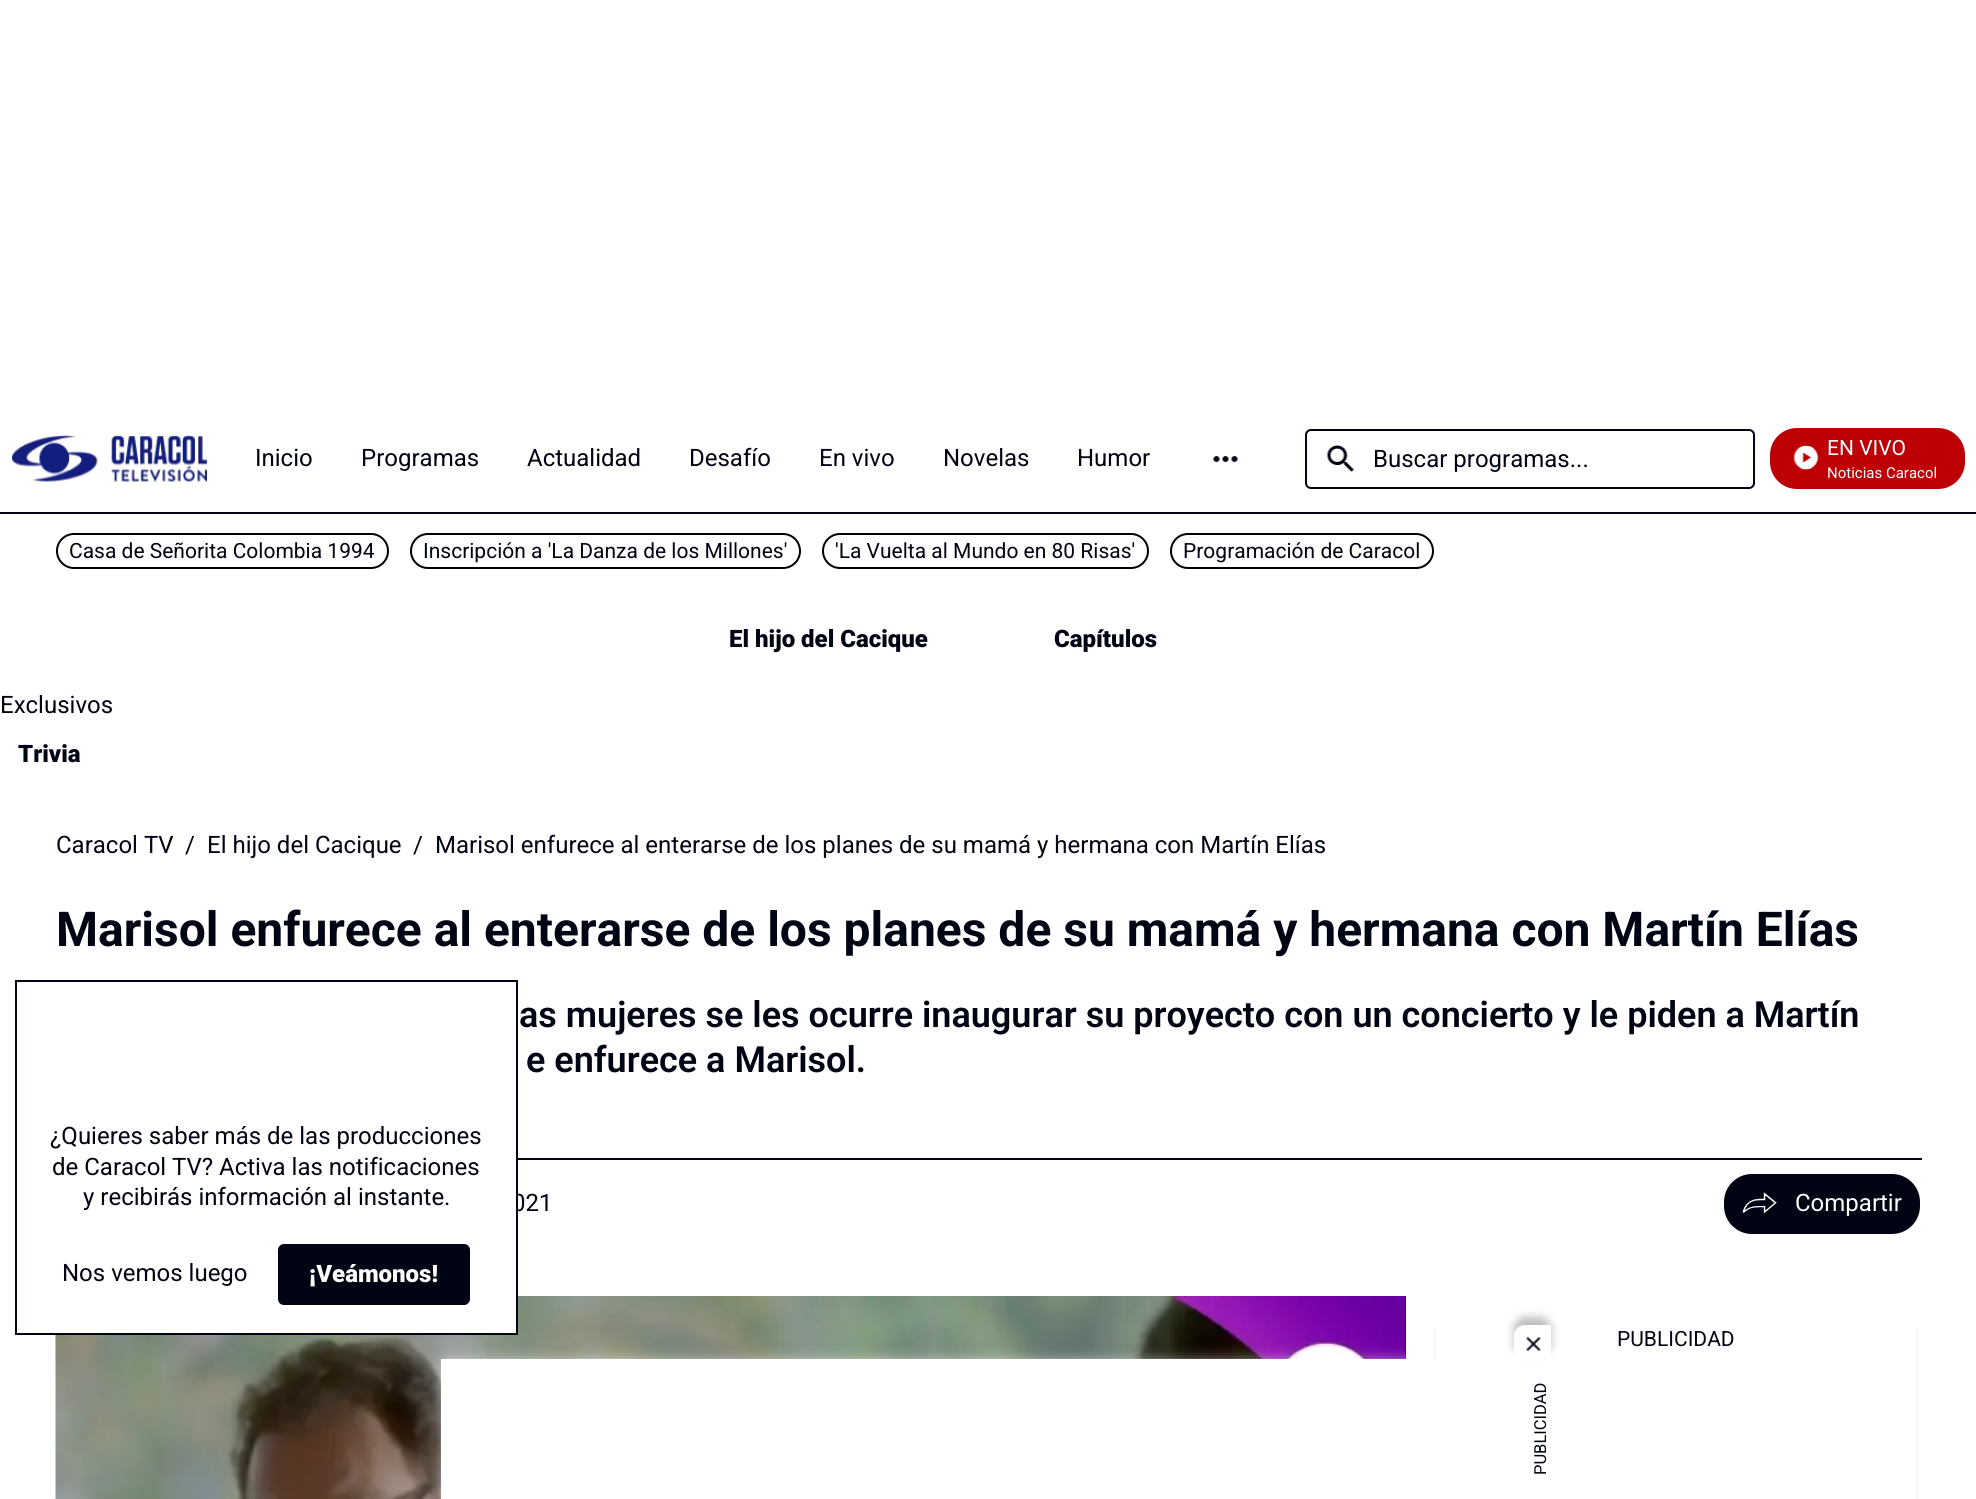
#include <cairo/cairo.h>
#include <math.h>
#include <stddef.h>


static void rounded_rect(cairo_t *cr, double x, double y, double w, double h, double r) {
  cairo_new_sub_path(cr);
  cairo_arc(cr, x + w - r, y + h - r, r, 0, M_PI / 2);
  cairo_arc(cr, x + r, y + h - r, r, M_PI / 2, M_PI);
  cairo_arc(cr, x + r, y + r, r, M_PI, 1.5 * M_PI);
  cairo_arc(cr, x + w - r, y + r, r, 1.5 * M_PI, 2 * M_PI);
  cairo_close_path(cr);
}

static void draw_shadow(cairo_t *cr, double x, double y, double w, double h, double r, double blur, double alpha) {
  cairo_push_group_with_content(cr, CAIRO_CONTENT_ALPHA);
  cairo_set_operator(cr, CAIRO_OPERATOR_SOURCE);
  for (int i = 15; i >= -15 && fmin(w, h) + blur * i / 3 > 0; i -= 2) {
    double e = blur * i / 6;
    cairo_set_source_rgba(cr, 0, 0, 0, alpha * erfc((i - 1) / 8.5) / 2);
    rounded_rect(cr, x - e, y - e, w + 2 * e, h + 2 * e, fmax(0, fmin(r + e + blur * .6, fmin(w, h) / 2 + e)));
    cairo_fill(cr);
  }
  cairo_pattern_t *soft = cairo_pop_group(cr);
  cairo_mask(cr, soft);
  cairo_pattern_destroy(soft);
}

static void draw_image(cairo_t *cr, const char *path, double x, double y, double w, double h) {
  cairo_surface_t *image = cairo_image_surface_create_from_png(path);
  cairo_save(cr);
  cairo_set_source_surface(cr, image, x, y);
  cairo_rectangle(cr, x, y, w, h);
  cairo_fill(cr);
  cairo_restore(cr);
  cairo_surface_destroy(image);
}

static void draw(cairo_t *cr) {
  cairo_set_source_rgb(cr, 1, 1, 1);
  cairo_paint(cr);
  cairo_set_source_rgb(cr, 0, 4 / 255.0, 19 / 255.0);
  cairo_rectangle(cr, 0, 512, 1976, 2);
  cairo_fill(cr);
  draw_image(cr, "images/1.png", 12, 435, 195, 47);
  draw_image(cr, "images/2.png", 1213, 456, 25, 6);
  rounded_rect(cr, 1306, 430, 448, 58, 5);
  cairo_stroke(cr);
  draw_image(cr, "images/3.png", 1327, 445, 28, 27);
  cairo_set_source_rgb(cr, 189 / 255.0, 0, 5 / 255.0);
  rounded_rect(cr, 1770, 428, 195, 61, 27);
  cairo_fill(cr);
  draw_image(cr, "images/4.png", 1793, 445, 26, 25);
  rounded_rect(cr, 57, 534, 331, 34, 17);
  cairo_set_source_rgb(cr, 0, 0, 0);
  cairo_stroke(cr);
  rounded_rect(cr, 411, 534, 389, 34, 17);
  cairo_stroke(cr);
  rounded_rect(cr, 823, 534, 325, 34, 17);
  cairo_stroke(cr);
  rounded_rect(cr, 1171, 534, 262, 34, 17);
  cairo_stroke(cr);
  cairo_set_source_rgb(cr, 0, 4 / 255.0, 19 / 255.0);
  cairo_rectangle(cr, 518, 1158, 1404, 2);
  cairo_fill(cr);
  rounded_rect(cr, 1723, 1173, 198, 62, 29);
  cairo_fill_preserve(cr);
  cairo_set_source_rgb(cr, 1, 1, 1);
  cairo_stroke(cr);
  draw_image(cr, "images/5.png", 1742, 1192, 35, 22);
  cairo_set_source_rgb(cr, 0, 0, 0);
  cairo_rectangle(cr, 1405, 1296, 1, 63);
  cairo_fill(cr);
  draw_image(cr, "images/6.png", 55, 1296, 1351, 203);
  cairo_save(cr);
  cairo_set_fill_rule(cr, CAIRO_FILL_RULE_EVEN_ODD);
  cairo_new_path(cr);
  cairo_move_to(cr, 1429, 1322);
  cairo_line_to(cr, 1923, 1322);
  cairo_line_to(cr, 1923, 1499);
  cairo_line_to(cr, 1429, 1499);
  cairo_close_path(cr);
  cairo_move_to(cr, 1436, 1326);
  cairo_line_to(cr, 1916, 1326);
  cairo_line_to(cr, 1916, 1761);
  cairo_line_to(cr, 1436, 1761);
  cairo_close_path(cr);
  cairo_clip(cr);
  cairo_set_source_rgb(cr, 86 / 255.0, 86 / 255.0, 86 / 255.0);
  draw_shadow(cr, 1436, 1329, 480, 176, 0, 2, 0.18);
  cairo_restore(cr);
  cairo_set_source_rgb(cr, 1, 1, 1);
  draw_shadow(cr, 446, 1364, 1086, 132, 0, 7.5, 1);
  cairo_set_source_rgb(cr, 1, 1, 1);
  cairo_rectangle(cr, 441, 1359, 995, 140);
  cairo_fill(cr);
  cairo_save(cr);
  cairo_set_fill_rule(cr, CAIRO_FILL_RULE_EVEN_ODD);
  cairo_new_path(cr);
  cairo_move_to(cr, 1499, 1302);
  cairo_line_to(cr, 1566, 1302);
  cairo_line_to(cr, 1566, 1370);
  cairo_line_to(cr, 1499, 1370);
  cairo_close_path(cr);
  cairo_move_to(cr, 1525, 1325);
  cairo_line_to(cr, 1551, 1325);
  cairo_line_to(cr, 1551, 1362);
  cairo_line_to(cr, 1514, 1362);
  cairo_line_to(cr, 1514, 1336);
  cairo_curve_to(cr, 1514, 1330, 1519, 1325, 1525, 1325);
  cairo_close_path(cr);
  cairo_clip(cr);
  cairo_set_source_rgb(cr, 33 / 255.0, 33 / 255.0, 33 / 255.0);
  draw_shadow(cr, 1514, 1317, 37, 38, 11, 4.5, 0.3);
  cairo_restore(cr);
  draw_image(cr, "images/7.png", 1526, 1336, 15, 16);
  cairo_select_font_face(cr, "Roboto", CAIRO_FONT_SLANT_NORMAL, CAIRO_FONT_WEIGHT_NORMAL);
  cairo_set_font_size(cr, 24);
  cairo_set_source_rgb(cr, 0, 4 / 255.0, 19 / 255.0);
  cairo_move_to(cr, 255, 466);
  cairo_show_text(cr, "Inicio");
  cairo_move_to(cr, 361, 466);
  cairo_show_text(cr, "Programas");
  cairo_move_to(cr, 527, 466);
  cairo_show_text(cr, "Actualidad");
  cairo_move_to(cr, 689, 466);
  cairo_show_text(cr, "Desafío");
  cairo_move_to(cr, 819, 466);
  cairo_show_text(cr, "En vivo");
  cairo_move_to(cr, 943, 466);
  cairo_show_text(cr, "Novelas");
  cairo_move_to(cr, 1077, 466);
  cairo_show_text(cr, "Humor");
  cairo_move_to(cr, 1373, 467);
  cairo_show_text(cr, "Buscar programas...");
  cairo_set_font_size(cr, 21);
  cairo_set_source_rgb(cr, 1, 1, 1);
  cairo_move_to(cr, 1827, 455);
  cairo_show_text(cr, "EN VIVO");
  cairo_set_font_size(cr, 15);
  cairo_move_to(cr, 1827, 478);
  cairo_show_text(cr, "Noticias Caracol");
  cairo_set_font_size(cr, 21);
  cairo_set_source_rgb(cr, 0, 4 / 255.0, 19 / 255.0);
  cairo_move_to(cr, 69, 558);
  cairo_show_text(cr, "Casa de Señorita Colombia 1994");
  cairo_move_to(cr, 423, 558);
  cairo_show_text(cr, "Inscripción a 'La Danza de los Millones'");
  cairo_move_to(cr, 835, 558);
  cairo_show_text(cr, "'La Vuelta al Mundo en 80 Risas'");
  cairo_move_to(cr, 1183, 558);
  cairo_show_text(cr, "Programación de Caracol");
  cairo_select_font_face(cr, "Roboto Black", CAIRO_FONT_SLANT_NORMAL, CAIRO_FONT_WEIGHT_NORMAL);
  cairo_set_font_size(cr, 24);
  cairo_move_to(cr, 729, 647);
  cairo_show_text(cr, "El hijo del Cacique");
  cairo_move_to(cr, 1054, 647);
  cairo_show_text(cr, "Capítulos");
  cairo_select_font_face(cr, "Roboto", CAIRO_FONT_SLANT_NORMAL, CAIRO_FONT_WEIGHT_NORMAL);
  cairo_move_to(cr, 0, 713);
  cairo_show_text(cr, "Exclusivos");
  cairo_select_font_face(cr, "Roboto Black", CAIRO_FONT_SLANT_NORMAL, CAIRO_FONT_WEIGHT_NORMAL);
  cairo_move_to(cr, 18, 762);
  cairo_show_text(cr, "Trivia");
  cairo_select_font_face(cr, "Roboto", CAIRO_FONT_SLANT_NORMAL, CAIRO_FONT_WEIGHT_NORMAL);
  cairo_move_to(cr, 56, 853);
  cairo_show_text(cr, "Caracol TV");
  cairo_move_to(cr, 185, 853);
  cairo_show_text(cr, "/");
  cairo_move_to(cr, 207, 853);
  cairo_show_text(cr, "El hijo del Cacique");
  cairo_move_to(cr, 413, 853);
  cairo_show_text(cr, "/");
  cairo_move_to(cr, 435, 853);
  cairo_show_text(cr, "Marisol enfurece al enterarse de los planes de su mamá y hermana con Martín Elías");
  cairo_select_font_face(cr, "Roboto", CAIRO_FONT_SLANT_NORMAL, CAIRO_FONT_WEIGHT_BOLD);
  cairo_set_font_size(cr, 48);
  cairo_move_to(cr, 56, 946);
  cairo_show_text(cr, "Marisol enfurece al enterarse de los planes de su mamá y hermana con Martín Elías");
  cairo_select_font_face(cr, "Roboto SemiBold", CAIRO_FONT_SLANT_NORMAL, CAIRO_FONT_WEIGHT_NORMAL);
  cairo_set_font_size(cr, 36);
  cairo_move_to(cr, 519, 1027);
  cairo_show_text(cr, "as mujeres se les ocurre inaugurar su proyecto con un concierto y le piden a Martín");
  cairo_move_to(cr, 526, 1072);
  cairo_show_text(cr, "e enfurece a Marisol.");
  cairo_select_font_face(cr, "Roboto", CAIRO_FONT_SLANT_NORMAL, CAIRO_FONT_WEIGHT_NORMAL);
  cairo_set_font_size(cr, 24);
  cairo_move_to(cr, 512, 1211);
  cairo_show_text(cr, "021");
  cairo_set_source_rgb(cr, 1, 1, 1);
  cairo_move_to(cr, 1795, 1211);
  cairo_show_text(cr, "Compartir");
  cairo_set_font_size(cr, 21);
  cairo_set_source_rgb(cr, 0, 4 / 255.0, 19 / 255.0);
  cairo_move_to(cr, 1617, 1346);
  cairo_show_text(cr, "PUBLICIDAD");
  cairo_set_source_rgb(cr, 1, 1, 1);
  cairo_rectangle(cr, 55, 1194, 461, 139);
  cairo_fill(cr);
  cairo_rectangle(cr, 16, 981, 501, 353);
  cairo_set_source_rgb(cr, 0, 4 / 255.0, 19 / 255.0);
  cairo_stroke(cr);
  cairo_set_font_size(cr, 24);
  cairo_move_to(cr, 50, 1144);
  cairo_show_text(cr, "¿Quieres saber más de las producciones");
  cairo_move_to(cr, 52, 1175);
  cairo_show_text(cr, "de Caracol TV? Activa las notificaciones");
  cairo_move_to(cr, 83, 1205);
  cairo_show_text(cr, "y recibirás información al instante.");
  cairo_move_to(cr, 62, 1281);
  cairo_show_text(cr, "Nos vemos luego");
  rounded_rect(cr, 279, 1245, 190, 59, 5);
  cairo_fill_preserve(cr);
  cairo_stroke(cr);
  cairo_select_font_face(cr, "Roboto Black", CAIRO_FONT_SLANT_NORMAL, CAIRO_FONT_WEIGHT_NORMAL);
  cairo_set_source_rgb(cr, 1, 1, 1);
  cairo_move_to(cr, 309, 1282);
  cairo_show_text(cr, "¡Veámonos!");
  cairo_select_font_face(cr, "Roboto", CAIRO_FONT_SLANT_NORMAL, CAIRO_FONT_WEIGHT_NORMAL);
  cairo_set_font_size(cr, 16.5);
  cairo_set_source_rgb(cr, 0, 4 / 255.0, 19 / 255.0);
  cairo_save(cr);
  cairo_translate(cr, 1546, 1475);
  cairo_rotate(cr, -90 * M_PI / 180);
  cairo_move_to(cr, 0, 0);
  cairo_show_text(cr, "PUBLICIDAD");
  cairo_restore(cr);
}

int main(void) {
  cairo_surface_t *surface = cairo_image_surface_create(CAIRO_FORMAT_RGB24, 1976, 1499);
  cairo_t *cr = cairo_create(surface);
  cairo_font_options_t *options = cairo_font_options_create();
  cairo_font_options_set_hint_metrics(options, CAIRO_HINT_METRICS_OFF);
  cairo_font_options_set_hint_style(options, CAIRO_HINT_STYLE_NONE);
  cairo_set_font_options(cr, options);
  cairo_set_miter_limit(cr, 4);
  draw(cr);
  cairo_surface_write_to_png(surface, "out.png");
  cairo_font_options_destroy(options);
  cairo_destroy(cr);
  cairo_surface_destroy(surface);
  return 0;
}
